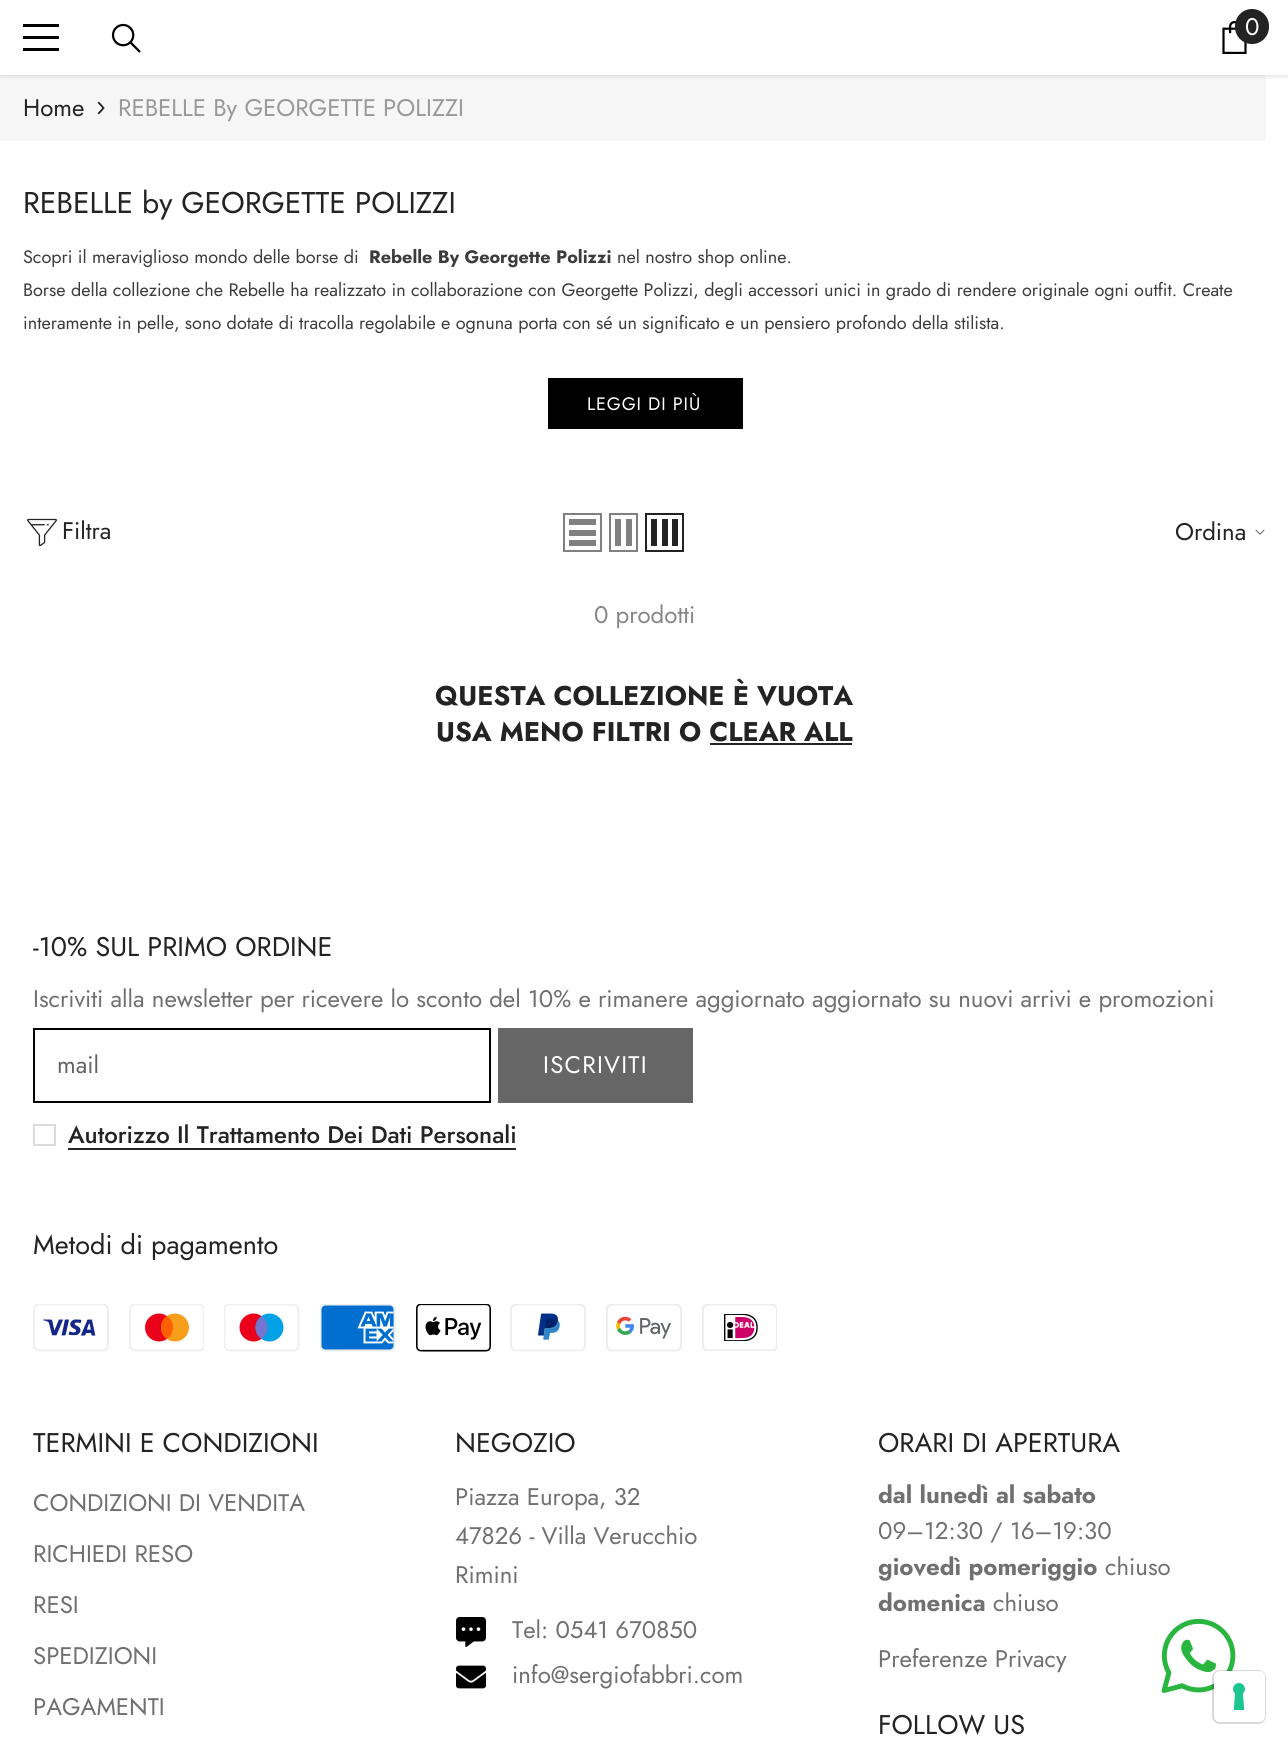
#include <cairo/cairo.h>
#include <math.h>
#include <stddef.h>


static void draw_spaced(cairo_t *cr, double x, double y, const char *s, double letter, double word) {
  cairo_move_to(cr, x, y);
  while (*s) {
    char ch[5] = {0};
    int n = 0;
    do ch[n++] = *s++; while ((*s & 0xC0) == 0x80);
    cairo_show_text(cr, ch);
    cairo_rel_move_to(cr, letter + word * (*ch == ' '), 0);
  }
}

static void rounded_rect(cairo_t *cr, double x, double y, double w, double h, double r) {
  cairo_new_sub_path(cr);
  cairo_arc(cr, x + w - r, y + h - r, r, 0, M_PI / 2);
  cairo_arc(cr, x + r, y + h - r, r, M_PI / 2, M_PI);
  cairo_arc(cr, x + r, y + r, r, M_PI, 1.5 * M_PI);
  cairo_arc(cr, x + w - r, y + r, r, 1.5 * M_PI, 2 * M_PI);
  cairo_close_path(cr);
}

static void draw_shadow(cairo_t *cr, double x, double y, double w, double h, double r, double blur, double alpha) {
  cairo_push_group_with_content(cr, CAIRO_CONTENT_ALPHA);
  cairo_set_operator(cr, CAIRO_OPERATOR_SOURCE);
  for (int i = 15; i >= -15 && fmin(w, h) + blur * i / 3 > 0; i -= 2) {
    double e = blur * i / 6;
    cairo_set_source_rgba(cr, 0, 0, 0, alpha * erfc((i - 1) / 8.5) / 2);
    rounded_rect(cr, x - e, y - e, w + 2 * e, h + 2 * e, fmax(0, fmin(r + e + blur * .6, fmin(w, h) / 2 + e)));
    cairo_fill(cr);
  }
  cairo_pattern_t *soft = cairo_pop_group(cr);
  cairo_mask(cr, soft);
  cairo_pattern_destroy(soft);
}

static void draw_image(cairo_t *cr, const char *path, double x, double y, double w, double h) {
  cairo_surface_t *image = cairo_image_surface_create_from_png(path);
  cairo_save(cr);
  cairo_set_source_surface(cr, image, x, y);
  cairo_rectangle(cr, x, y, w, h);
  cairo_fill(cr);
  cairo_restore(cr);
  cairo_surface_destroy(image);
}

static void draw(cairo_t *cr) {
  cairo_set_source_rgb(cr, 1, 1, 1);
  cairo_paint(cr);
  cairo_set_source_rgb(cr, 246 / 255.0, 246 / 255.0, 246 / 255.0);
  cairo_rectangle(cr, 0, 75, 1266, 66);
  cairo_fill(cr);
  cairo_save(cr);
  cairo_rectangle(cr, 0, 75, 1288, 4);
  cairo_clip(cr);
  cairo_set_source_rgb(cr, 0, 0, 0);
  draw_shadow(cr, 0, 2, 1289, 75, 0, 2, 0.1);
  cairo_restore(cr);
  cairo_set_source_rgb(cr, 0, 0, 0);
  cairo_rectangle(cr, 23, 36, 36, 3);
  cairo_fill(cr);
  cairo_rectangle(cr, 23, 24, 36, 3);
  cairo_fill(cr);
  cairo_rectangle(cr, 23, 48, 36, 3);
  cairo_fill(cr);
  draw_image(cr, "images/1.png", 111, 23, 30, 30);
  draw_image(cr, "images/2.png", 1222, 21, 25, 33);
  cairo_set_source_rgb(cr, 35 / 255.0, 35 / 255.0, 35 / 255.0);
  rounded_rect(cr, 1235, 9, 34, 35, 17);
  cairo_fill(cr);
  draw_image(cr, "images/3.png", 97, 101, 8, 14);
  cairo_set_source_rgb(cr, 0, 0, 0);
  cairo_rectangle(cr, 548, 378, 195, 51);
  cairo_fill(cr);
  draw_image(cr, "images/4.png", 27, 518, 30, 29);
  cairo_rectangle(cr, 564, 514, 37, 37);
  cairo_set_source_rgb(cr, 128 / 255.0, 128 / 255.0, 128 / 255.0);
  cairo_stroke(cr);
  cairo_rectangle(cr, 569, 540, 27, 6);
  cairo_fill(cr);
  cairo_rectangle(cr, 569, 530, 27, 6);
  cairo_fill(cr);
  cairo_rectangle(cr, 569, 519, 27, 6);
  cairo_fill(cr);
  cairo_rectangle(cr, 610, 514, 27, 37);
  cairo_stroke(cr);
  cairo_rectangle(cr, 626, 519, 6, 27);
  cairo_fill(cr);
  cairo_rectangle(cr, 615, 519, 6, 27);
  cairo_fill(cr);
  cairo_rectangle(cr, 646, 514, 37, 37);
  cairo_set_source_rgb(cr, 35 / 255.0, 35 / 255.0, 35 / 255.0);
  cairo_stroke(cr);
  cairo_rectangle(cr, 672, 519, 6, 27);
  cairo_fill(cr);
  cairo_rectangle(cr, 662, 519, 6, 27);
  cairo_fill(cr);
  cairo_rectangle(cr, 651, 519, 6, 27);
  cairo_fill(cr);
  draw_image(cr, "images/5.png", 1255, 530, 10, 5);
  cairo_rectangle(cr, 710, 743, 142, 2);
  cairo_fill(cr);
  cairo_rectangle(cr, 34, 1029, 456, 73);
  cairo_set_source_rgb(cr, 0, 0, 0);
  cairo_stroke(cr);
  cairo_set_source_rgb(cr, 102 / 255.0, 102 / 255.0, 102 / 255.0);
  cairo_rectangle(cr, 498, 1028, 195, 75);
  cairo_fill(cr);
  cairo_rectangle(cr, 34, 1125, 21, 20);
  cairo_set_source_rgb(cr, 219 / 255.0, 219 / 255.0, 219 / 255.0);
  cairo_stroke(cr);
  cairo_set_source_rgb(cr, 35 / 255.0, 35 / 255.0, 35 / 255.0);
  cairo_rectangle(cr, 68, 1148, 448, 2);
  cairo_fill(cr);
  draw_image(cr, "images/6.png", 33, 1304, 76, 48);
  draw_image(cr, "images/7.png", 129, 1304, 75, 48);
  draw_image(cr, "images/8.png", 224, 1304, 76, 48);
  draw_image(cr, "images/9.png", 320, 1304, 76, 48);
  draw_image(cr, "images/10.png", 416, 1304, 75, 48);
  draw_image(cr, "images/11.png", 510, 1304, 76, 48);
  draw_image(cr, "images/12.png", 606, 1304, 76, 48);
  draw_image(cr, "images/13.png", 702, 1304, 75, 47);
  draw_image(cr, "images/14.png", 456, 1617, 30, 30);
  draw_image(cr, "images/15.png", 456, 1665, 30, 24);
  draw_image(cr, "images/16.png", 1161, 1619, 75, 74);
  rounded_rect(cr, 1213, 1671, 52, 52, 7);
  cairo_set_source_rgba(cr, 0, 0, 0, 0.15);
  cairo_stroke(cr);
  cairo_set_source_rgb(cr, 1, 1, 1);
  rounded_rect(cr, 1214, 1671, 51, 51, 6);
  cairo_fill(cr);
  draw_image(cr, "images/17.png", 1233, 1683, 12, 27);
  cairo_select_font_face(cr, "Jost", CAIRO_FONT_SLANT_NORMAL, CAIRO_FONT_WEIGHT_NORMAL);
  cairo_set_font_size(cr, 24);
  cairo_move_to(cr, 1245, 35);
  cairo_show_text(cr, "0");
  cairo_set_source_rgb(cr, 35 / 255.0, 35 / 255.0, 35 / 255.0);
  cairo_move_to(cr, 23, 116);
  cairo_show_text(cr, "Home");
  cairo_set_source_rgb(cr, 153 / 255.0, 153 / 255.0, 153 / 255.0);
  cairo_move_to(cr, 118, 116);
  cairo_show_text(cr, "REBELLE By GEORGETTE POLIZZI");
  cairo_set_font_size(cr, 30);
  cairo_set_source_rgb(cr, 35 / 255.0, 35 / 255.0, 35 / 255.0);
  cairo_move_to(cr, 23, 213);
  cairo_show_text(cr, "REBELLE by GEORGETTE POLIZZI");
  cairo_set_font_size(cr, 18);
  cairo_set_source_rgb(cr, 60 / 255.0, 60 / 255.0, 60 / 255.0);
  cairo_move_to(cr, 23, 263);
  cairo_show_text(cr, "Scopri il meraviglioso mondo delle borse di");
  cairo_select_font_face(cr, "Jost", CAIRO_FONT_SLANT_NORMAL, CAIRO_FONT_WEIGHT_BOLD);
  cairo_move_to(cr, 369, 263);
  cairo_show_text(cr, "Rebelle By Georgette Polizzi");
  cairo_select_font_face(cr, "Jost", CAIRO_FONT_SLANT_NORMAL, CAIRO_FONT_WEIGHT_NORMAL);
  cairo_move_to(cr, 617, 263);
  cairo_show_text(cr, "nel nostro shop online.");
  cairo_move_to(cr, 23, 296);
  cairo_show_text(cr, "Borse della collezione che Rebelle ha realizzato in collaborazione con Georgette Polizzi, degli accessori unici in grado di rendere originale ogni outfit. Create");
  cairo_move_to(cr, 23, 329);
  cairo_show_text(cr, "interamente in pelle, sono dotate di tracolla regolabile e ognuna porta con sé un significato e un pensiero profondo della stilista.");
  cairo_set_source_rgb(cr, 1, 1, 1);
  draw_spaced(cr, 587, 410, "LEGGI DI PIÙ", 0.9, 0);
  cairo_set_font_size(cr, 24);
  cairo_set_source_rgb(cr, 35 / 255.0, 35 / 255.0, 35 / 255.0);
  cairo_move_to(cr, 62, 539);
  cairo_show_text(cr, "Filtra");
  cairo_move_to(cr, 1175, 540);
  cairo_show_text(cr, "Ordina");
  cairo_set_source_rgb(cr, 134 / 255.0, 134 / 255.0, 134 / 255.0);
  cairo_move_to(cr, 594, 623);
  cairo_show_text(cr, "0 prodotti");
  cairo_select_font_face(cr, "Jost", CAIRO_FONT_SLANT_NORMAL, CAIRO_FONT_WEIGHT_BOLD);
  cairo_set_font_size(cr, 27);
  cairo_set_source_rgb(cr, 35 / 255.0, 35 / 255.0, 35 / 255.0);
  cairo_move_to(cr, 435, 705);
  cairo_show_text(cr, "QUESTA COLLEZIONE È VUOTA");
  cairo_move_to(cr, 436, 741);
  cairo_show_text(cr, "USA MENO FILTRI O CLEAR ALL");
  cairo_select_font_face(cr, "Jost", CAIRO_FONT_SLANT_NORMAL, CAIRO_FONT_WEIGHT_NORMAL);
  cairo_move_to(cr, 33, 956);
  cairo_show_text(cr, "-10% SUL PRIMO ORDINE");
  cairo_set_font_size(cr, 24);
  cairo_set_source_rgb(cr, 113 / 255.0, 112 / 255.0, 112 / 255.0);
  cairo_move_to(cr, 33, 1007);
  cairo_show_text(cr, "Iscriviti alla newsletter per ricevere lo sconto del 10% e rimanere aggiornato aggiornato su nuovi arrivi e promozioni");
  cairo_set_source_rgb(cr, 100 / 255.0, 100 / 255.0, 100 / 255.0);
  cairo_move_to(cr, 57, 1073);
  cairo_show_text(cr, "mail");
  cairo_set_source_rgb(cr, 1, 1, 1);
  draw_spaced(cr, 543, 1073, "ISCRIVITI", 1.25, 0);
  cairo_select_font_face(cr, "Jost Medium", CAIRO_FONT_SLANT_NORMAL, CAIRO_FONT_WEIGHT_NORMAL);
  cairo_set_source_rgb(cr, 35 / 255.0, 35 / 255.0, 35 / 255.0);
  cairo_move_to(cr, 68, 1143);
  cairo_show_text(cr, "Autorizzo Il Trattamento Dei Dati Personali");
  cairo_select_font_face(cr, "Jost", CAIRO_FONT_SLANT_NORMAL, CAIRO_FONT_WEIGHT_NORMAL);
  cairo_set_font_size(cr, 27);
  cairo_move_to(cr, 33, 1254);
  cairo_show_text(cr, "Metodi di pagamento");
  cairo_move_to(cr, 33, 1452);
  cairo_show_text(cr, "TERMINI E CONDIZIONI");
  cairo_set_font_size(cr, 24);
  cairo_set_source_rgb(cr, 113 / 255.0, 112 / 255.0, 112 / 255.0);
  cairo_move_to(cr, 33, 1511);
  cairo_show_text(cr, "CONDIZIONI DI VENDITA");
  cairo_move_to(cr, 33, 1562);
  cairo_show_text(cr, "RICHIEDI RESO");
  cairo_move_to(cr, 33, 1613);
  cairo_show_text(cr, "RESI");
  cairo_move_to(cr, 33, 1664);
  cairo_show_text(cr, "SPEDIZIONI");
  cairo_move_to(cr, 33, 1715);
  cairo_show_text(cr, "PAGAMENTI");
  cairo_set_font_size(cr, 27);
  cairo_set_source_rgb(cr, 35 / 255.0, 35 / 255.0, 35 / 255.0);
  cairo_move_to(cr, 455, 1452);
  cairo_show_text(cr, "NEGOZIO");
  cairo_set_font_size(cr, 24);
  cairo_set_source_rgb(cr, 113 / 255.0, 112 / 255.0, 112 / 255.0);
  cairo_move_to(cr, 455, 1505);
  cairo_show_text(cr, "Piazza Europa, 32");
  cairo_move_to(cr, 455, 1544);
  cairo_show_text(cr, "47826 - Villa Verucchio");
  cairo_move_to(cr, 455, 1583);
  cairo_show_text(cr, "Rimini");
  cairo_move_to(cr, 512, 1638);
  cairo_show_text(cr, "Tel: 0541 670850");
  cairo_move_to(cr, 512, 1683);
  cairo_show_text(cr, "info@sergiofabbri.com");
  cairo_set_font_size(cr, 27);
  cairo_set_source_rgb(cr, 35 / 255.0, 35 / 255.0, 35 / 255.0);
  cairo_move_to(cr, 878, 1452);
  cairo_show_text(cr, "ORARI DI APERTURA");
  cairo_select_font_face(cr, "Jost", CAIRO_FONT_SLANT_NORMAL, CAIRO_FONT_WEIGHT_BOLD);
  cairo_set_font_size(cr, 24);
  cairo_set_source_rgb(cr, 113 / 255.0, 112 / 255.0, 112 / 255.0);
  cairo_move_to(cr, 878, 1503);
  cairo_show_text(cr, "dal lunedì al sabato");
  cairo_select_font_face(cr, "Jost", CAIRO_FONT_SLANT_NORMAL, CAIRO_FONT_WEIGHT_NORMAL);
  cairo_move_to(cr, 878, 1539);
  cairo_show_text(cr, "09–12:30 / 16–19:30");
  cairo_select_font_face(cr, "Jost", CAIRO_FONT_SLANT_NORMAL, CAIRO_FONT_WEIGHT_BOLD);
  cairo_move_to(cr, 878, 1575);
  cairo_show_text(cr, "giovedì pomeriggio");
  cairo_select_font_face(cr, "Jost", CAIRO_FONT_SLANT_NORMAL, CAIRO_FONT_WEIGHT_NORMAL);
  cairo_move_to(cr, 1105, 1575);
  cairo_show_text(cr, "chiuso");
  cairo_select_font_face(cr, "Jost", CAIRO_FONT_SLANT_NORMAL, CAIRO_FONT_WEIGHT_BOLD);
  cairo_move_to(cr, 878, 1611);
  cairo_show_text(cr, "domenica");
  cairo_select_font_face(cr, "Jost", CAIRO_FONT_SLANT_NORMAL, CAIRO_FONT_WEIGHT_NORMAL);
  cairo_move_to(cr, 993, 1611);
  cairo_show_text(cr, "chiuso");
  cairo_move_to(cr, 878, 1667);
  cairo_show_text(cr, "Preferenze Privacy");
  cairo_set_font_size(cr, 27);
  cairo_set_source_rgb(cr, 35 / 255.0, 35 / 255.0, 35 / 255.0);
  cairo_move_to(cr, 878, 1734);
  cairo_show_text(cr, "FOLLOW US");
}

int main(void) {
  cairo_surface_t *surface = cairo_image_surface_create(CAIRO_FORMAT_RGB24, 1288, 1746);
  cairo_t *cr = cairo_create(surface);
  cairo_font_options_t *options = cairo_font_options_create();
  cairo_font_options_set_hint_metrics(options, CAIRO_HINT_METRICS_OFF);
  cairo_font_options_set_hint_style(options, CAIRO_HINT_STYLE_NONE);
  cairo_set_font_options(cr, options);
  cairo_set_miter_limit(cr, 4);
  draw(cr);
  cairo_surface_write_to_png(surface, "out.png");
  cairo_font_options_destroy(options);
  cairo_destroy(cr);
  cairo_surface_destroy(surface);
  return 0;
}
